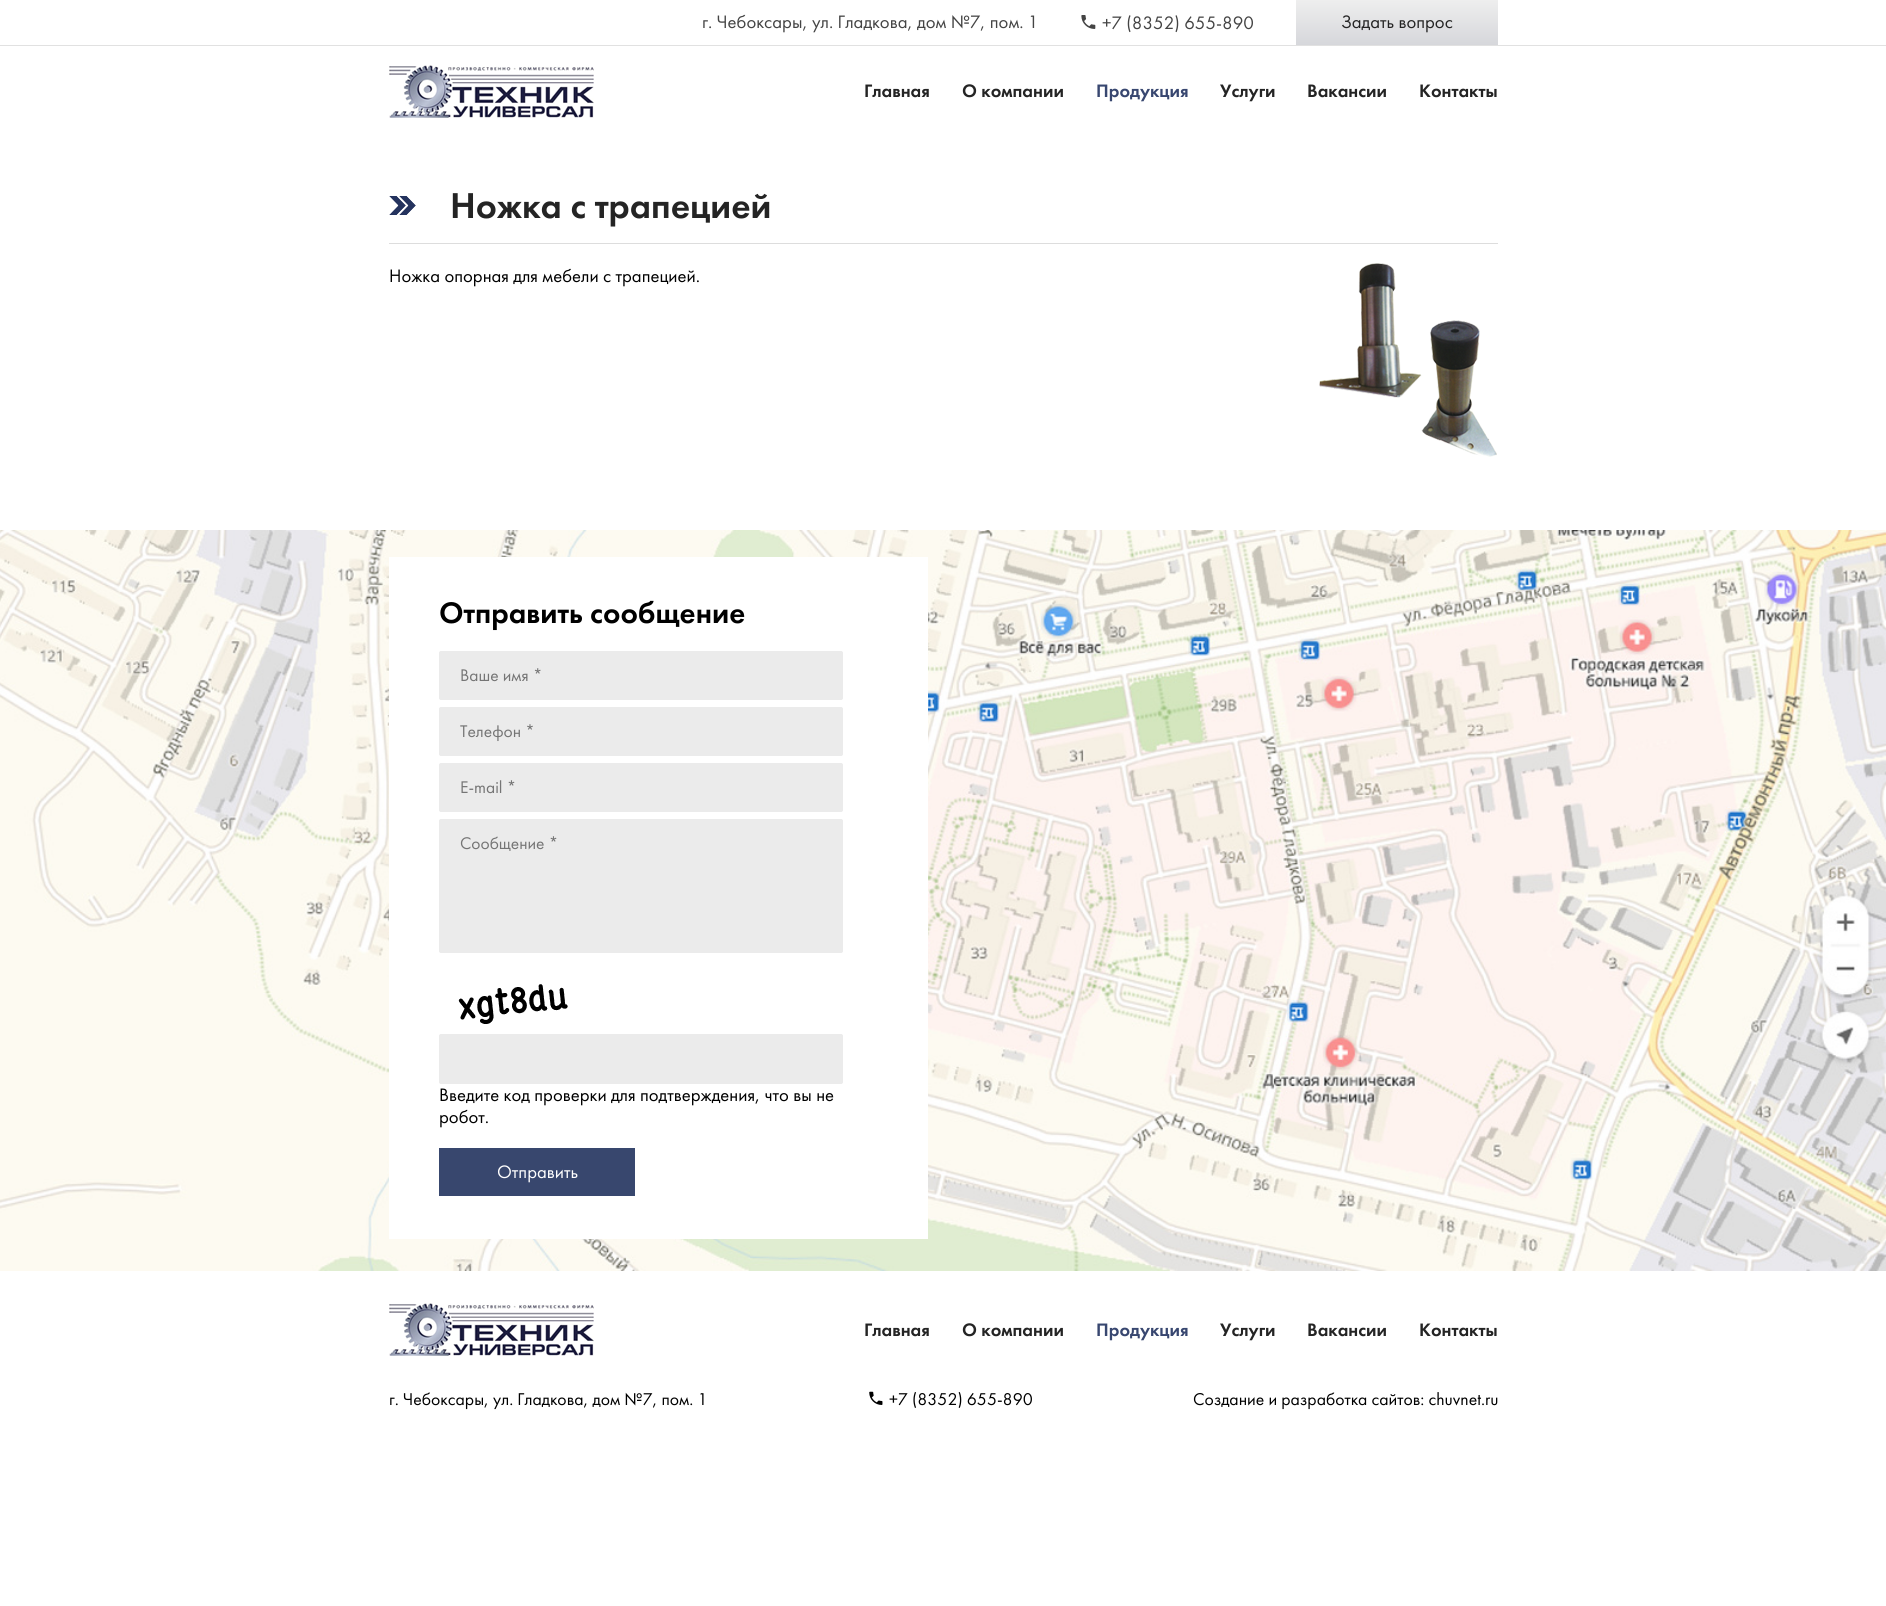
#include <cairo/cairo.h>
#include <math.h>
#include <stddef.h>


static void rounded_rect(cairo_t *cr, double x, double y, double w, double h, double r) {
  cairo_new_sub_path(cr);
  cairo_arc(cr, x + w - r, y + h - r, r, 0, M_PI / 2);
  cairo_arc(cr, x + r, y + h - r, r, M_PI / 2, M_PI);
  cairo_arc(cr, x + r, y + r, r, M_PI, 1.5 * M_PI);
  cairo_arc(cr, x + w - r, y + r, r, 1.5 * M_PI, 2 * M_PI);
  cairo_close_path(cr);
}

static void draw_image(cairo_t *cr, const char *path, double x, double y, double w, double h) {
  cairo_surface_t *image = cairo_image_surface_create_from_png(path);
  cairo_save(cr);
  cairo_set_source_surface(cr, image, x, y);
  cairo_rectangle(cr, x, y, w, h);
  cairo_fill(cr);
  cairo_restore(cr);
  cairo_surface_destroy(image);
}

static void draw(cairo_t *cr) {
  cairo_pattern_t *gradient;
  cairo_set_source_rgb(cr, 1, 1, 1);
  cairo_paint(cr);
  cairo_set_source_rgb(cr, 225 / 255.0, 225 / 255.0, 225 / 255.0);
  cairo_rectangle(cr, 0, 45, 1886, 1);
  cairo_fill(cr);
  draw_image(cr, "images/1.png", 1081, 15, 15, 14);
  gradient = cairo_pattern_create_linear(1397, 0, 1397, 45);
  cairo_pattern_add_color_stop_rgba(gradient, 0, 238 / 255.0, 238 / 255.0, 238 / 255.0, 1);
  cairo_pattern_add_color_stop_rgba(gradient, 1, 214 / 255.0, 215 / 255.0, 219 / 255.0, 1);
  cairo_set_source(cr, gradient);
  cairo_pattern_destroy(gradient);
  cairo_rectangle(cr, 1296, 0, 202, 45);
  cairo_fill(cr);
  draw_image(cr, "images/2.png", 389, 65, 205, 53);
  cairo_set_source_rgb(cr, 221 / 255.0, 221 / 255.0, 221 / 255.0);
  cairo_rectangle(cr, 389, 243, 1109, 1);
  cairo_fill(cr);
  draw_image(cr, "images/3.png", 389, 196, 27, 19);
  draw_image(cr, "images/4.png", 1319, 263, 178, 194);
  draw_image(cr, "images/5.png", 0, 530, 1886, 741);
  cairo_set_source_rgb(cr, 1, 1, 1);
  cairo_rectangle(cr, 389, 557, 539, 682);
  cairo_fill(cr);
  cairo_set_source_rgb(cr, 235 / 255.0, 235 / 255.0, 235 / 255.0);
  rounded_rect(cr, 439.5, 651.5, 403, 48, 1.5);
  cairo_fill_preserve(cr);
  cairo_set_line_width(cr, 1);
  cairo_stroke(cr);
  rounded_rect(cr, 439.5, 707.5, 403, 48, 1.5);
  cairo_fill_preserve(cr);
  cairo_stroke(cr);
  rounded_rect(cr, 439.5, 763.5, 403, 48, 1.5);
  cairo_fill_preserve(cr);
  cairo_stroke(cr);
  rounded_rect(cr, 439.5, 819.5, 403, 133, 1.5);
  cairo_fill_preserve(cr);
  cairo_stroke(cr);
  draw_image(cr, "images/6.png", 458, 984, 110, 40);
  rounded_rect(cr, 439.5, 1034.5, 403, 49, 1.5);
  cairo_fill_preserve(cr);
  cairo_stroke(cr);
  cairo_set_source_rgb(cr, 56 / 255.0, 71 / 255.0, 110 / 255.0);
  cairo_rectangle(cr, 439, 1148, 196, 48);
  cairo_fill(cr);
  draw_image(cr, "images/2.png", 389, 1303, 205, 53);
  draw_image(cr, "images/7.png", 869, 1391, 14, 14);
  cairo_select_font_face(cr, "Futura PT", CAIRO_FONT_SLANT_NORMAL, CAIRO_FONT_WEIGHT_NORMAL);
  cairo_set_font_size(cr, 18.7);
  cairo_set_source_rgb(cr, 68 / 255.0, 68 / 255.0, 68 / 255.0);
  cairo_move_to(cr, 702, 28);
  cairo_show_text(cr, "г. Чебоксары, ул. Гладкова, дом №7, пом. 1");
  cairo_move_to(cr, 1102, 29);
  cairo_show_text(cr, "+7 (8352) 655-890");
  cairo_set_source_rgb(cr, 36 / 255.0, 36 / 255.0, 36 / 255.0);
  cairo_move_to(cr, 1341, 28);
  cairo_show_text(cr, "Задать вопрос");
  cairo_select_font_face(cr, "Futura PT Medium", CAIRO_FONT_SLANT_NORMAL, CAIRO_FONT_WEIGHT_NORMAL);
  cairo_move_to(cr, 864, 97);
  cairo_show_text(cr, "Главная");
  cairo_move_to(cr, 962, 97);
  cairo_show_text(cr, "О компании");
  cairo_set_source_rgb(cr, 56 / 255.0, 71 / 255.0, 112 / 255.0);
  cairo_move_to(cr, 1096, 97);
  cairo_show_text(cr, "Продукция");
  cairo_set_source_rgb(cr, 36 / 255.0, 36 / 255.0, 36 / 255.0);
  cairo_move_to(cr, 1220, 97);
  cairo_show_text(cr, "Услуги");
  cairo_move_to(cr, 1307, 97);
  cairo_show_text(cr, "Вакансии");
  cairo_move_to(cr, 1419, 97);
  cairo_show_text(cr, "Контакты");
  cairo_set_font_size(cr, 37.25);
  cairo_move_to(cr, 450, 218);
  cairo_show_text(cr, "Ножка с трапецией");
  cairo_select_font_face(cr, "Futura PT", CAIRO_FONT_SLANT_NORMAL, CAIRO_FONT_WEIGHT_NORMAL);
  cairo_set_font_size(cr, 18.7);
  cairo_set_source_rgb(cr, 0, 0, 0);
  cairo_move_to(cr, 389, 282);
  cairo_show_text(cr, "Ножка опорная для мебели с трапецией.");
  cairo_select_font_face(cr, "Futura PT Medium", CAIRO_FONT_SLANT_NORMAL, CAIRO_FONT_WEIGHT_NORMAL);
  cairo_set_font_size(cr, 30.75);
  cairo_move_to(cr, 439, 623);
  cairo_show_text(cr, "Отправить сообщение");
  cairo_select_font_face(cr, "Futura PT", CAIRO_FONT_SLANT_NORMAL, CAIRO_FONT_WEIGHT_NORMAL);
  cairo_set_font_size(cr, 17.5);
  cairo_set_source_rgb(cr, 117 / 255.0, 117 / 255.0, 117 / 255.0);
  cairo_move_to(cr, 460, 681);
  cairo_show_text(cr, "Ваше имя *");
  cairo_move_to(cr, 460, 737);
  cairo_show_text(cr, "Телефон *");
  cairo_move_to(cr, 460, 793);
  cairo_show_text(cr, "E-mail *");
  cairo_move_to(cr, 460, 849);
  cairo_show_text(cr, "Сообщение *");
  cairo_set_font_size(cr, 18.7);
  cairo_set_source_rgb(cr, 0, 0, 0);
  cairo_move_to(cr, 439, 1101);
  cairo_show_text(cr, "Введите код проверки для подтверждения, что вы не");
  cairo_move_to(cr, 439, 1123);
  cairo_show_text(cr, "робот.");
  cairo_set_source_rgb(cr, 1, 1, 1);
  cairo_move_to(cr, 497, 1178);
  cairo_show_text(cr, "Отправить");
  cairo_select_font_face(cr, "Futura PT Medium", CAIRO_FONT_SLANT_NORMAL, CAIRO_FONT_WEIGHT_NORMAL);
  cairo_set_source_rgb(cr, 36 / 255.0, 36 / 255.0, 36 / 255.0);
  cairo_move_to(cr, 864, 1336);
  cairo_show_text(cr, "Главная");
  cairo_move_to(cr, 962, 1336);
  cairo_show_text(cr, "О компании");
  cairo_set_source_rgb(cr, 56 / 255.0, 71 / 255.0, 112 / 255.0);
  cairo_move_to(cr, 1096, 1336);
  cairo_show_text(cr, "Продукция");
  cairo_set_source_rgb(cr, 36 / 255.0, 36 / 255.0, 36 / 255.0);
  cairo_move_to(cr, 1220, 1336);
  cairo_show_text(cr, "Услуги");
  cairo_move_to(cr, 1307, 1336);
  cairo_show_text(cr, "Вакансии");
  cairo_move_to(cr, 1419, 1336);
  cairo_show_text(cr, "Контакты");
  cairo_select_font_face(cr, "Futura PT", CAIRO_FONT_SLANT_NORMAL, CAIRO_FONT_WEIGHT_NORMAL);
  cairo_set_font_size(cr, 17.7);
  cairo_set_source_rgb(cr, 0, 0, 0);
  cairo_move_to(cr, 389, 1405);
  cairo_show_text(cr, "г. Чебоксары, ул. Гладкова, дом №7, пом. 1");
  cairo_move_to(cr, 889, 1405);
  cairo_show_text(cr, "+7 (8352) 655-890");
  cairo_move_to(cr, 1193, 1405);
  cairo_show_text(cr, "Создание и разработка сайтов: chuvnet.ru");
}

int main(void) {
  cairo_surface_t *surface = cairo_image_surface_create(CAIRO_FORMAT_RGB24, 1886, 1606);
  cairo_t *cr = cairo_create(surface);
  cairo_font_options_t *options = cairo_font_options_create();
  cairo_font_options_set_hint_metrics(options, CAIRO_HINT_METRICS_OFF);
  cairo_font_options_set_hint_style(options, CAIRO_HINT_STYLE_NONE);
  cairo_set_font_options(cr, options);
  cairo_set_miter_limit(cr, 4);
  draw(cr);
  cairo_surface_write_to_png(surface, "out.png");
  cairo_font_options_destroy(options);
  cairo_destroy(cr);
  cairo_surface_destroy(surface);
  return 0;
}
